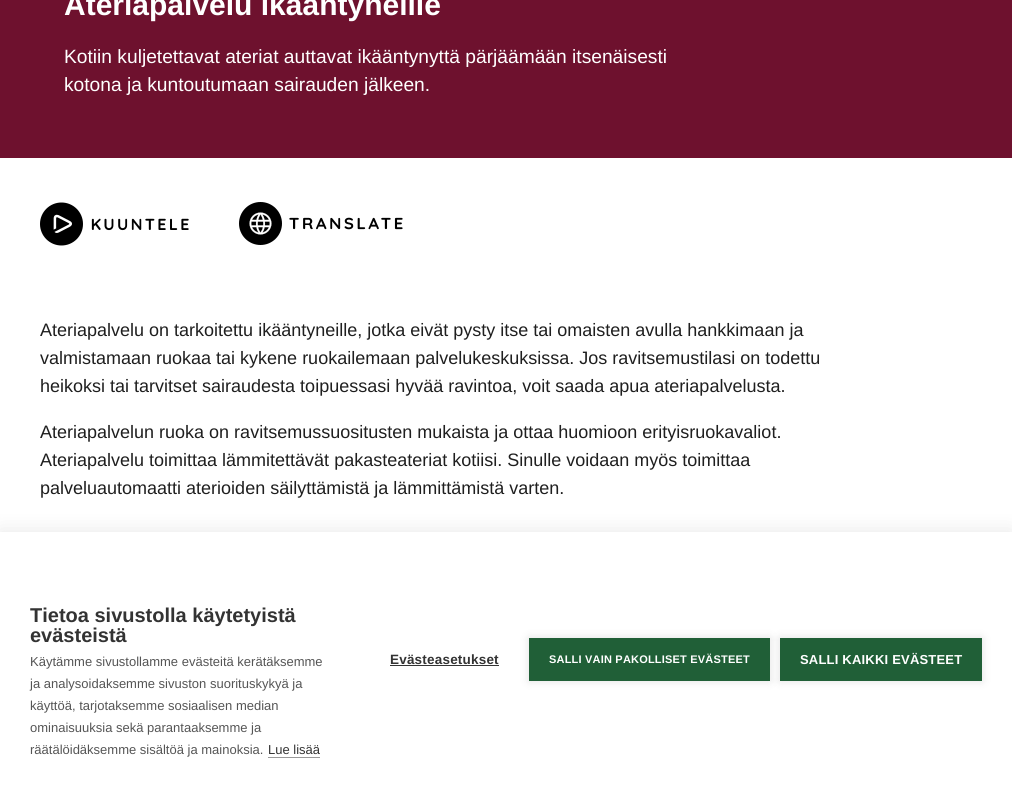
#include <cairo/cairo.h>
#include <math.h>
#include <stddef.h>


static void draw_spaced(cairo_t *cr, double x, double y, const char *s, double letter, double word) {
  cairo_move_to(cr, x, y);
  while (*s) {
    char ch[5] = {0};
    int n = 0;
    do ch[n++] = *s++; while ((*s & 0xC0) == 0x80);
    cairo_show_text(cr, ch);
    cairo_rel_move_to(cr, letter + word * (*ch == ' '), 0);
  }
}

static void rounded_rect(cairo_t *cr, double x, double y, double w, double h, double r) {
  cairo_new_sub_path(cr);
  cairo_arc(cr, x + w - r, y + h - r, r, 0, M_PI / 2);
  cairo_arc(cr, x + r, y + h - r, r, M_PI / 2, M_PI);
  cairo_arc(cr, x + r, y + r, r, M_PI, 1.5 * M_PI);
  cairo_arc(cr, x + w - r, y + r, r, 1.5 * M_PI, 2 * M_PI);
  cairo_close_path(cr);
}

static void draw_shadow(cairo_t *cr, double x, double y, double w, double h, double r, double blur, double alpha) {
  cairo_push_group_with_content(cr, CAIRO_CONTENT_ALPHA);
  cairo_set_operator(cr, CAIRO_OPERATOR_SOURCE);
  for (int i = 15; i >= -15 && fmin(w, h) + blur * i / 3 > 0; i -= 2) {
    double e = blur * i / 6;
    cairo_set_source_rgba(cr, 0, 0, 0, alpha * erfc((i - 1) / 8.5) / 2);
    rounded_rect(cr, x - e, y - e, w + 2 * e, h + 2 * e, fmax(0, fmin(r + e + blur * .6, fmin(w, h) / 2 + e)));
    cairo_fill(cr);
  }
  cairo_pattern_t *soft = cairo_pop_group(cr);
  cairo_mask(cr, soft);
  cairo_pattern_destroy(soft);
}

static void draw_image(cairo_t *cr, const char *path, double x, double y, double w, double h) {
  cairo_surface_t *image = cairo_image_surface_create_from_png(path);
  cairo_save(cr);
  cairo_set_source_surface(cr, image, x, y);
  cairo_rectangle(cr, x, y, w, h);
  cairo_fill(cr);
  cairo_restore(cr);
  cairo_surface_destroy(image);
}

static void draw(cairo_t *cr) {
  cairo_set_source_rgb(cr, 1, 1, 1);
  cairo_paint(cr);
  cairo_set_source_rgb(cr, 110 / 255.0, 17 / 255.0, 46 / 255.0);
  cairo_rectangle(cr, 0, 0, 1012, 158);
  cairo_fill(cr);
  draw_image(cr, "images/1.png", 40, 202, 149, 44);
  draw_image(cr, "images/2.png", 239, 202, 164, 43);
  cairo_set_source_rgb(cr, 0, 0, 0);
  draw_shadow(cr, 0, 532, 1012, 254, 0, 10, 0.1);
  cairo_set_source_rgb(cr, 1, 1, 1);
  cairo_rectangle(cr, 0, 532, 1012, 254);
  cairo_fill(cr);
  cairo_set_source_rgb(cr, 153 / 255.0, 153 / 255.0, 153 / 255.0);
  cairo_rectangle(cr, 268, 757, 52, 1);
  cairo_fill(cr);
  cairo_set_source_rgb(cr, 51 / 255.0, 51 / 255.0, 51 / 255.0);
  cairo_rectangle(cr, 390, 665, 109, 1);
  cairo_fill(cr);
  cairo_set_source_rgb(cr, 0, 0, 0);
  draw_shadow(cr, 529, 638, 241, 43, 0, 5, 0.12);
  cairo_set_source_rgb(cr, 32 / 255.0, 95 / 255.0, 55 / 255.0);
  cairo_rectangle(cr, 529, 638, 241, 43);
  cairo_fill(cr);
  cairo_set_source_rgb(cr, 0, 0, 0);
  draw_shadow(cr, 780, 638, 202, 43, 0, 5, 0.12);
  cairo_set_source_rgb(cr, 32 / 255.0, 95 / 255.0, 55 / 255.0);
  cairo_rectangle(cr, 780, 638, 202, 43);
  cairo_fill(cr);
  cairo_select_font_face(cr, "Liberation Sans", CAIRO_FONT_SLANT_NORMAL, CAIRO_FONT_WEIGHT_BOLD);
  cairo_set_font_size(cr, 30);
  cairo_set_source_rgb(cr, 1, 1, 1);
  cairo_move_to(cr, 64, 15);
  cairo_show_text(cr, "Ateriapalvelu ikääntyneille");
  cairo_select_font_face(cr, "Liberation Sans", CAIRO_FONT_SLANT_NORMAL, CAIRO_FONT_WEIGHT_NORMAL);
  cairo_set_font_size(cr, 19.2);
  cairo_move_to(cr, 64, 63);
  cairo_show_text(cr, "Kotiin kuljetettavat ateriat auttavat ikääntynyttä pärjäämään itsenäisesti");
  cairo_move_to(cr, 64, 91);
  cairo_show_text(cr, "kotona ja kuntoutumaan sairauden jälkeen.");
  cairo_set_font_size(cr, 18);
  cairo_set_source_rgb(cr, 31 / 255.0, 31 / 255.0, 31 / 255.0);
  cairo_move_to(cr, 40, 336);
  cairo_show_text(cr, "Ateriapalvelu on tarkoitettu ikääntyneille, jotka eivät pysty itse tai omaisten avulla hankkimaan ja");
  cairo_move_to(cr, 40, 364);
  cairo_show_text(cr, "valmistamaan ruokaa tai kykene ruokailemaan palvelukeskuksissa. Jos ravitsemustilasi on todettu");
  cairo_move_to(cr, 40, 392);
  cairo_show_text(cr, "heikoksi tai tarvitset sairaudesta toipuessasi hyvää ravintoa, voit saada apua ateriapalvelusta.");
  cairo_move_to(cr, 40, 438);
  cairo_show_text(cr, "Ateriapalvelun ruoka on ravitsemussuositusten mukaista ja ottaa huomioon erityisruokavaliot.");
  cairo_move_to(cr, 40, 466);
  cairo_show_text(cr, "Ateriapalvelu toimittaa lämmitettävät pakasteateriat kotiisi. Sinulle voidaan myös toimittaa");
  cairo_move_to(cr, 40, 494);
  cairo_show_text(cr, "palveluautomaatti aterioiden säilyttämistä ja lämmittämistä varten.");
  cairo_select_font_face(cr, "Liberation Sans", CAIRO_FONT_SLANT_NORMAL, CAIRO_FONT_WEIGHT_BOLD);
  cairo_set_font_size(cr, 20);
  cairo_set_source_rgb(cr, 51 / 255.0, 51 / 255.0, 51 / 255.0);
  cairo_move_to(cr, 30, 622);
  cairo_show_text(cr, "Tietoa sivustolla käytetyistä");
  cairo_move_to(cr, 30, 642);
  cairo_show_text(cr, "evästeistä");
  cairo_select_font_face(cr, "Liberation Sans", CAIRO_FONT_SLANT_NORMAL, CAIRO_FONT_WEIGHT_NORMAL);
  cairo_set_font_size(cr, 13);
  cairo_set_source_rgb(cr, 85 / 255.0, 85 / 255.0, 85 / 255.0);
  cairo_move_to(cr, 30, 666);
  cairo_show_text(cr, "Käytämme sivustollamme evästeitä kerätäksemme");
  cairo_move_to(cr, 30, 688);
  cairo_show_text(cr, "ja analysoidaksemme sivuston suorituskykyä ja");
  cairo_move_to(cr, 30, 710);
  cairo_show_text(cr, "käyttöä, tarjotaksemme sosiaalisen median");
  cairo_move_to(cr, 30, 732);
  cairo_show_text(cr, "ominaisuuksia sekä parantaaksemme ja");
  cairo_move_to(cr, 30, 754);
  cairo_show_text(cr, "räätälöidäksemme sisältöä ja mainoksia.");
  cairo_set_source_rgb(cr, 51 / 255.0, 51 / 255.0, 51 / 255.0);
  cairo_move_to(cr, 268, 754);
  cairo_show_text(cr, "Lue lisää");
  cairo_select_font_face(cr, "Liberation Sans", CAIRO_FONT_SLANT_NORMAL, CAIRO_FONT_WEIGHT_BOLD);
  cairo_set_font_size(cr, 13.5);
  draw_spaced(cr, 390, 664, "Evästeasetukset", 0.2, 0);
  cairo_set_font_size(cr, 11);
  cairo_set_source_rgb(cr, 1, 1, 1);
  draw_spaced(cr, 549, 663, "SALLI VAIN PAKOLLISET EVÄSTEET", 0.2, 0);
  cairo_set_font_size(cr, 13);
  draw_spaced(cr, 800, 664, "SALLI KAIKKI EVÄSTEET", 0.2, 0);
}

int main(void) {
  cairo_surface_t *surface = cairo_image_surface_create(CAIRO_FORMAT_RGB24, 1012, 786);
  cairo_t *cr = cairo_create(surface);
  cairo_font_options_t *options = cairo_font_options_create();
  cairo_font_options_set_hint_metrics(options, CAIRO_HINT_METRICS_OFF);
  cairo_font_options_set_hint_style(options, CAIRO_HINT_STYLE_NONE);
  cairo_set_font_options(cr, options);
  cairo_set_miter_limit(cr, 4);
  draw(cr);
  cairo_surface_write_to_png(surface, "out.png");
  cairo_font_options_destroy(options);
  cairo_destroy(cr);
  cairo_surface_destroy(surface);
  return 0;
}
